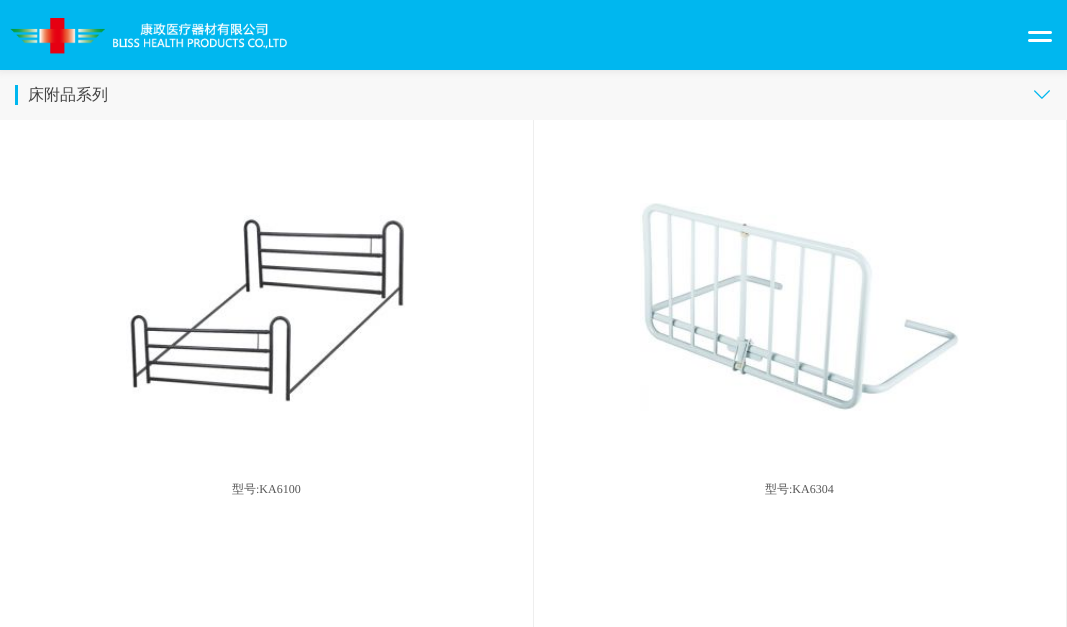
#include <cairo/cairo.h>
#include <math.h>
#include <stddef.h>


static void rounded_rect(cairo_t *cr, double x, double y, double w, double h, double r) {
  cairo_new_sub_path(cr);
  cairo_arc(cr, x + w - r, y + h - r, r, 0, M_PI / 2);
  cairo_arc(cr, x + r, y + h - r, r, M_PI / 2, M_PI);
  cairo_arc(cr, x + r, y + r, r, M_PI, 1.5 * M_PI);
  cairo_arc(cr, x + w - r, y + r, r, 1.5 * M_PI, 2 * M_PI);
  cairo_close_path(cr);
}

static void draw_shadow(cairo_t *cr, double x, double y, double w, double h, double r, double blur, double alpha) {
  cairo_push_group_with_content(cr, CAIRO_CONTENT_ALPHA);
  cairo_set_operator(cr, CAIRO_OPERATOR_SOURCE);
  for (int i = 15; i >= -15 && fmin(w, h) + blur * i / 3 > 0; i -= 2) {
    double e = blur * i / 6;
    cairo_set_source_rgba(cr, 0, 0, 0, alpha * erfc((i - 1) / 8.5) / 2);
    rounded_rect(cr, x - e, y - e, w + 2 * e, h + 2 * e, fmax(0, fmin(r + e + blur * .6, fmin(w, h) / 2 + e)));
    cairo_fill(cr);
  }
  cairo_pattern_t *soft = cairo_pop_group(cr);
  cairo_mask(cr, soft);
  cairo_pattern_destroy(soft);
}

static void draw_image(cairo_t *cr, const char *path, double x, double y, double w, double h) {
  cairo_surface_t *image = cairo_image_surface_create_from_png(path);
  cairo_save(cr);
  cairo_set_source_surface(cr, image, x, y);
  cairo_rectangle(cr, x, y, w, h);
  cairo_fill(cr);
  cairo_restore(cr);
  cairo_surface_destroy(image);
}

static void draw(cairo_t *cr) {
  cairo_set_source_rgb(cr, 1, 1, 1);
  cairo_paint(cr);
  cairo_set_source_rgb(cr, 248 / 255.0, 248 / 255.0, 248 / 255.0);
  cairo_rectangle(cr, 0, 70, 1067, 50);
  cairo_fill(cr);
  cairo_set_source_rgb(cr, 0, 183 / 255.0, 239 / 255.0);
  cairo_rectangle(cr, 15, 85, 3, 20);
  cairo_fill(cr);
  cairo_set_source_rgb(cr, 0, 0, 0);
  draw_shadow(cr, 0, 0, 1067, 70, 0, 5, 0.1);
  cairo_set_source_rgb(cr, 0, 183 / 255.0, 239 / 255.0);
  cairo_rectangle(cr, 0, 0, 1067, 70);
  cairo_fill(cr);
  draw_image(cr, "images/1.png", 10, 18, 277, 36);
  cairo_set_source_rgb(cr, 1, 1, 1);
  rounded_rect(cr, 1028, 31, 24, 3, 1.5);
  cairo_fill(cr);
  rounded_rect(cr, 1028, 39, 24, 3, 1.5);
  cairo_fill(cr);
  draw_image(cr, "images/2.png", 1034, 90, 16, 9);
  cairo_set_source_rgb(cr, 238 / 255.0, 238 / 255.0, 238 / 255.0);
  cairo_rectangle(cr, 533, 120, 1, 507);
  cairo_fill(cr);
  draw_image(cr, "images/3.png", 126, 215, 279, 187);
  cairo_rectangle(cr, 1066, 120, 1, 507);
  cairo_fill(cr);
  draw_image(cr, "images/4.png", 640, 203, 319, 208);
  cairo_select_font_face(cr, "WenQuanYi Zen Hei Medium", CAIRO_FONT_SLANT_NORMAL, CAIRO_FONT_WEIGHT_NORMAL);
  cairo_set_font_size(cr, 16);
  cairo_set_source_rgb(cr, 68 / 255.0, 68 / 255.0, 68 / 255.0);
  cairo_move_to(cr, 28, 100);
  cairo_show_text(cr, "床附品系列");
  cairo_set_font_size(cr, 12);
  cairo_set_source_rgb(cr, 85 / 255.0, 85 / 255.0, 85 / 255.0);
  cairo_move_to(cr, 232, 493);
  cairo_show_text(cr, "型号");
  cairo_select_font_face(cr, "Liberation Serif", CAIRO_FONT_SLANT_NORMAL, CAIRO_FONT_WEIGHT_NORMAL);
  cairo_move_to(cr, 256, 493);
  cairo_show_text(cr, ":KA6100");
  cairo_select_font_face(cr, "WenQuanYi Zen Hei Medium", CAIRO_FONT_SLANT_NORMAL, CAIRO_FONT_WEIGHT_NORMAL);
  cairo_move_to(cr, 765, 493);
  cairo_show_text(cr, "型号");
  cairo_select_font_face(cr, "Liberation Serif", CAIRO_FONT_SLANT_NORMAL, CAIRO_FONT_WEIGHT_NORMAL);
  cairo_move_to(cr, 789, 493);
  cairo_show_text(cr, ":KA6304");
}

int main(void) {
  cairo_surface_t *surface = cairo_image_surface_create(CAIRO_FORMAT_RGB24, 1067, 627);
  cairo_t *cr = cairo_create(surface);
  cairo_font_options_t *options = cairo_font_options_create();
  cairo_font_options_set_hint_metrics(options, CAIRO_HINT_METRICS_OFF);
  cairo_font_options_set_hint_style(options, CAIRO_HINT_STYLE_NONE);
  cairo_set_font_options(cr, options);
  cairo_set_miter_limit(cr, 4);
  draw(cr);
  cairo_surface_write_to_png(surface, "out.png");
  cairo_font_options_destroy(options);
  cairo_destroy(cr);
  cairo_surface_destroy(surface);
  return 0;
}
